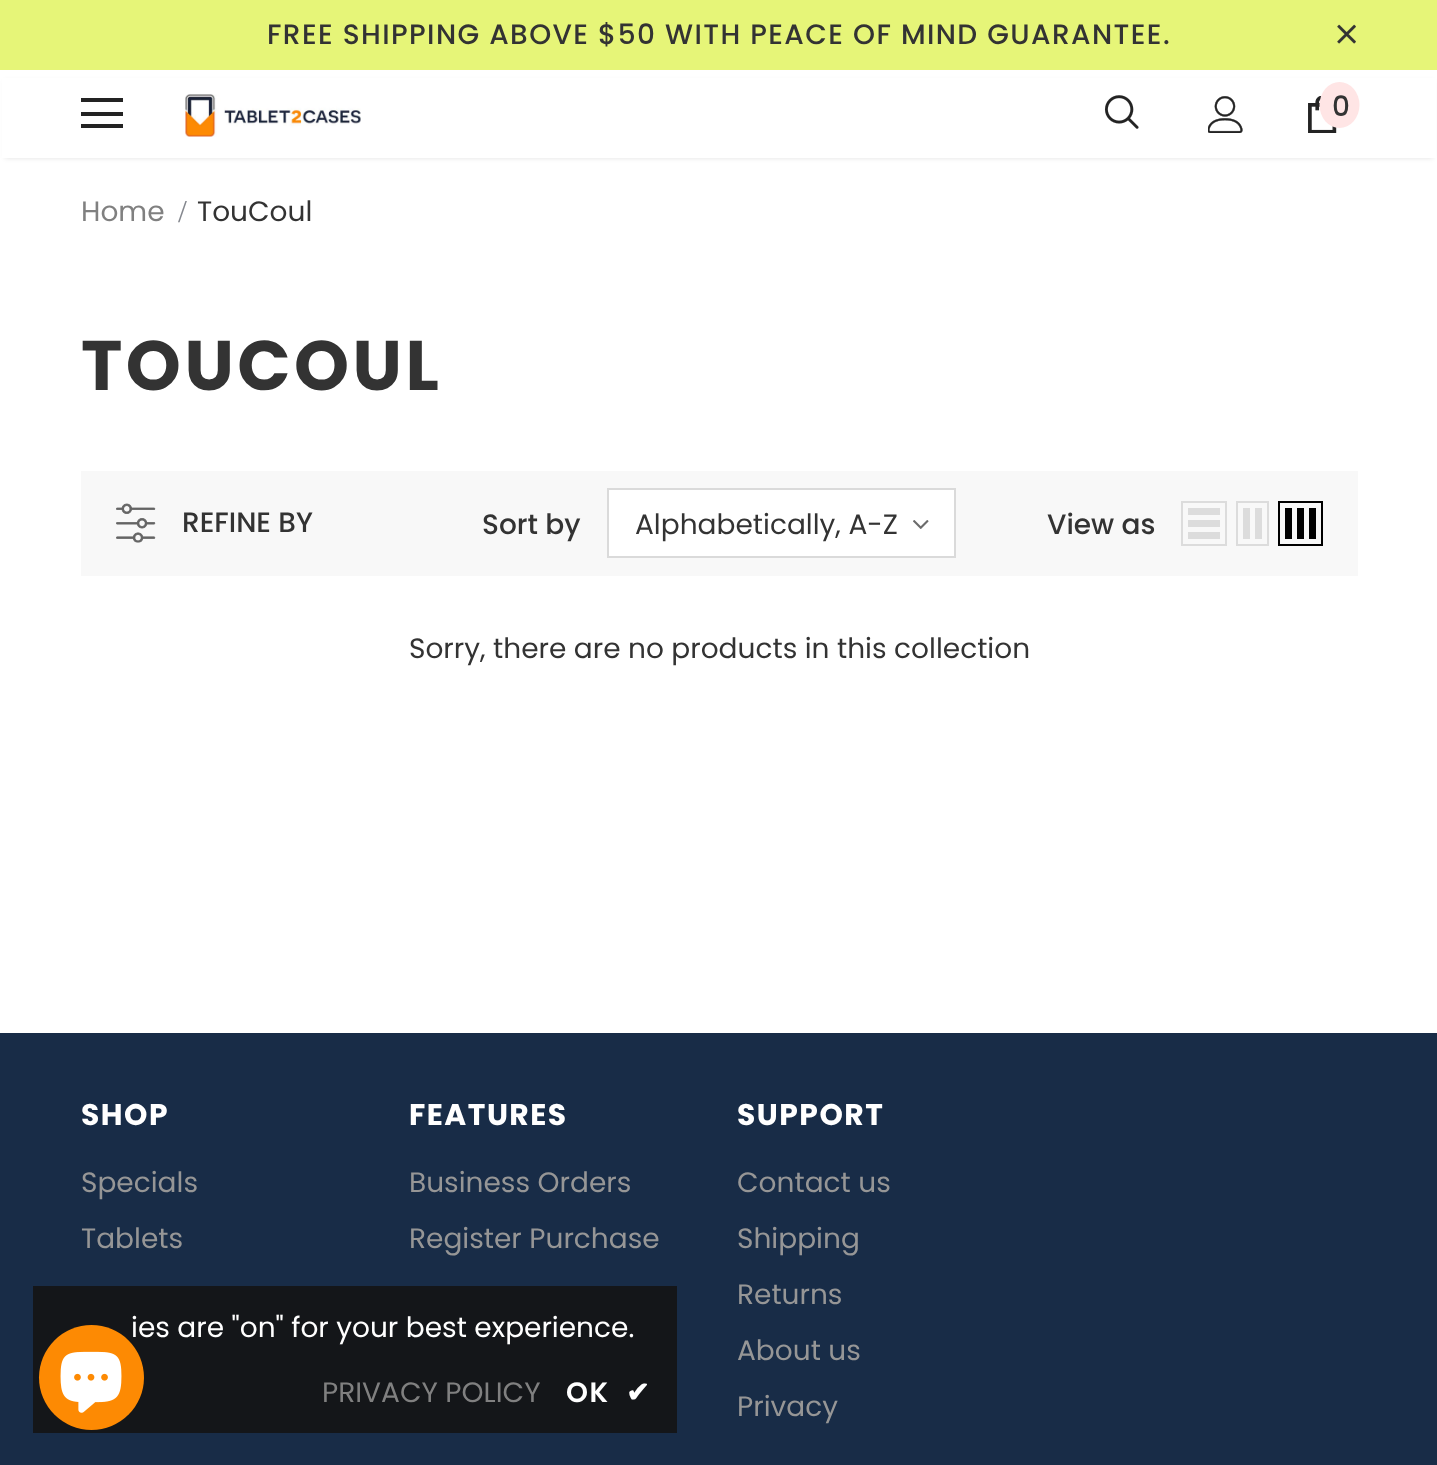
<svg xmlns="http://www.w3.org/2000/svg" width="1437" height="1465">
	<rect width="100%" height="100%" fill="#FFFFFF" />
	<rect x="0" y="0" width="1437" height="70" fill="#E6F578" />
	<text x="267" y="44" font-family="Poppins" font-size="28" font-weight="500" letter-spacing="1.4" fill="#333333">FREE SHIPPING ABOVE $50 WITH PEACE OF MIND GUARANTEE.</text>
	<image x="1337" y="24" width="19" height="20" href="assets/img1.png" />
	<rect x="5" y="81" width="1428" height="77" fill="#000000" fill-opacity="0.12" filter="blur(2.5px)" />
	<rect x="2" y="78" width="1434" height="80" fill="#FFFFFF" />
	<rect x="81" y="98" width="42" height="4" fill="#232323" />
	<rect x="81" y="112" width="42" height="4" fill="#232323" />
	<rect x="81" y="124" width="42" height="4" fill="#232323" />
	<image x="185" y="94" width="176" height="43" href="assets/img2.png" />
	<image x="1104" y="95" width="35" height="34" href="assets/img3.png" />
	<image x="1208" y="96" width="35" height="37" href="assets/img4.png" />
	<image x="1308" y="96" width="29" height="37" href="assets/img5.png" />
	<ellipse cx="1339.5" cy="105" rx="20" ry="23" fill="#FFE5E5" />
	<text x="1332" y="116" font-family="Poppins" font-size="28" font-weight="500" fill="#333333">0</text>
	<text x="81" y="221" font-family="Poppins" font-size="28" fill="#808080">Home</text>
	<text x="178" y="222" font-family="Liberation Serif" font-size="32" fill="#84878E">/</text>
	<text x="197" y="221" font-family="Poppins" font-size="28" fill="#333333">TouCoul</text>
	<text x="81" y="390" font-family="Poppins" font-size="70" font-weight="700" letter-spacing="3.5" fill="#333333">TOUCOUL</text>
	<rect x="81" y="471" width="1277" height="105" fill="#F8F8F8" />
	<image x="116" y="503" width="40" height="40" href="assets/img6.png" />
	<g font-family="Poppins" font-size="28" font-weight="500" fill="#333333">
		<text x="182" y="532">REFINE BY</text>
		<text x="482" y="534">Sort by</text>
	</g>
	<rect x="608" y="489" width="347" height="68" fill="#FFFFFF" stroke="#DADADA" stroke-width="2" />
	<text x="635" y="534" font-family="Poppins" font-size="28" fill="#333333">Alphabetically, A-Z</text>
	<image x="913" y="520" width="16" height="9" href="assets/img7.png" />
	<text x="1047" y="534" font-family="Poppins" font-size="28" font-weight="500" fill="#333333">View as</text>
	<rect x="1182" y="502" width="44" height="43" fill="none" stroke="#DCDCDC" stroke-width="2" />
	<rect x="1188" y="532" width="32" height="7" fill="#DCDCDC" />
	<rect x="1188" y="520" width="32" height="7" fill="#DCDCDC" />
	<rect x="1188" y="508" width="32" height="7" fill="#DCDCDC" />
	<rect x="1237" y="502" width="31" height="43" fill="none" stroke="#DCDCDC" stroke-width="2" />
	<rect x="1255" y="508" width="7" height="31" fill="#DCDCDC" />
	<rect x="1243" y="508" width="7" height="31" fill="#DCDCDC" />
	<rect x="1279" y="502" width="43" height="43" fill="none" stroke="#000000" stroke-width="2" />
	<rect x="1309" y="508" width="7" height="31" fill="#000000" />
	<rect x="1297" y="508" width="7" height="31" fill="#000000" />
	<rect x="1285" y="508" width="7" height="31" fill="#000000" />
	<text x="409" y="658" font-family="Poppins" font-size="28" fill="#333333">Sorry, there are no products in this collection</text>
	<rect x="0" y="1033" width="1437" height="432" fill="#182C47" />
	<text x="81" y="1125" font-family="Poppins" font-size="29.75" font-weight="700" letter-spacing="1.5" fill="#FFFFFF">SHOP</text>
	<g font-family="Poppins" font-size="28" fill="#969696">
		<text x="81" y="1192">Specials</text>
		<text x="81" y="1248">Tablets</text>
	</g>
	<text x="409" y="1125" font-family="Poppins" font-size="29.75" font-weight="700" letter-spacing="1.5" fill="#FFFFFF">FEATURES</text>
	<g font-family="Poppins" font-size="28" fill="#969696">
		<text x="409" y="1192">Business Orders</text>
		<text x="409" y="1248">Register Purchase</text>
	</g>
	<text x="737" y="1125" font-family="Poppins" font-size="29.75" font-weight="700" letter-spacing="1.5" fill="#FFFFFF">SUPPORT</text>
	<g font-family="Poppins" font-size="28" fill="#969696">
		<text x="737" y="1192">Contact us</text>
		<text x="737" y="1248">Shipping</text>
		<text x="737" y="1304">Returns</text>
		<text x="737" y="1360">About us</text>
		<text x="737" y="1416">Privacy</text>
	</g>
	<rect x="33" y="1286" width="644" height="147" fill="#141414" fill-opacity="0.9" />
	<text x="131" y="1337" font-family="Poppins" font-size="28" fill="#FFFFFF">ies are "on" for your best experience.</text>
	<text x="322" y="1402" font-family="Poppins" font-size="28" fill="#808080">PRIVACY POLICY</text>
	<text x="566" y="1402" font-family="Poppins" font-size="28" font-weight="600" letter-spacing="1.4" fill="#FFFFFF">OK</text>
	<text x="626" y="1402" font-family="DejaVu Sans" font-size="28" font-weight="700" letter-spacing="1.4" fill="#FFFFFF">✔</text>
	<circle cx="91.5" cy="1377.5" r="52.5" fill="#FD8A03" />
	<image x="60" y="1351" width="62" height="62" href="assets/img8.png" />
</svg>
